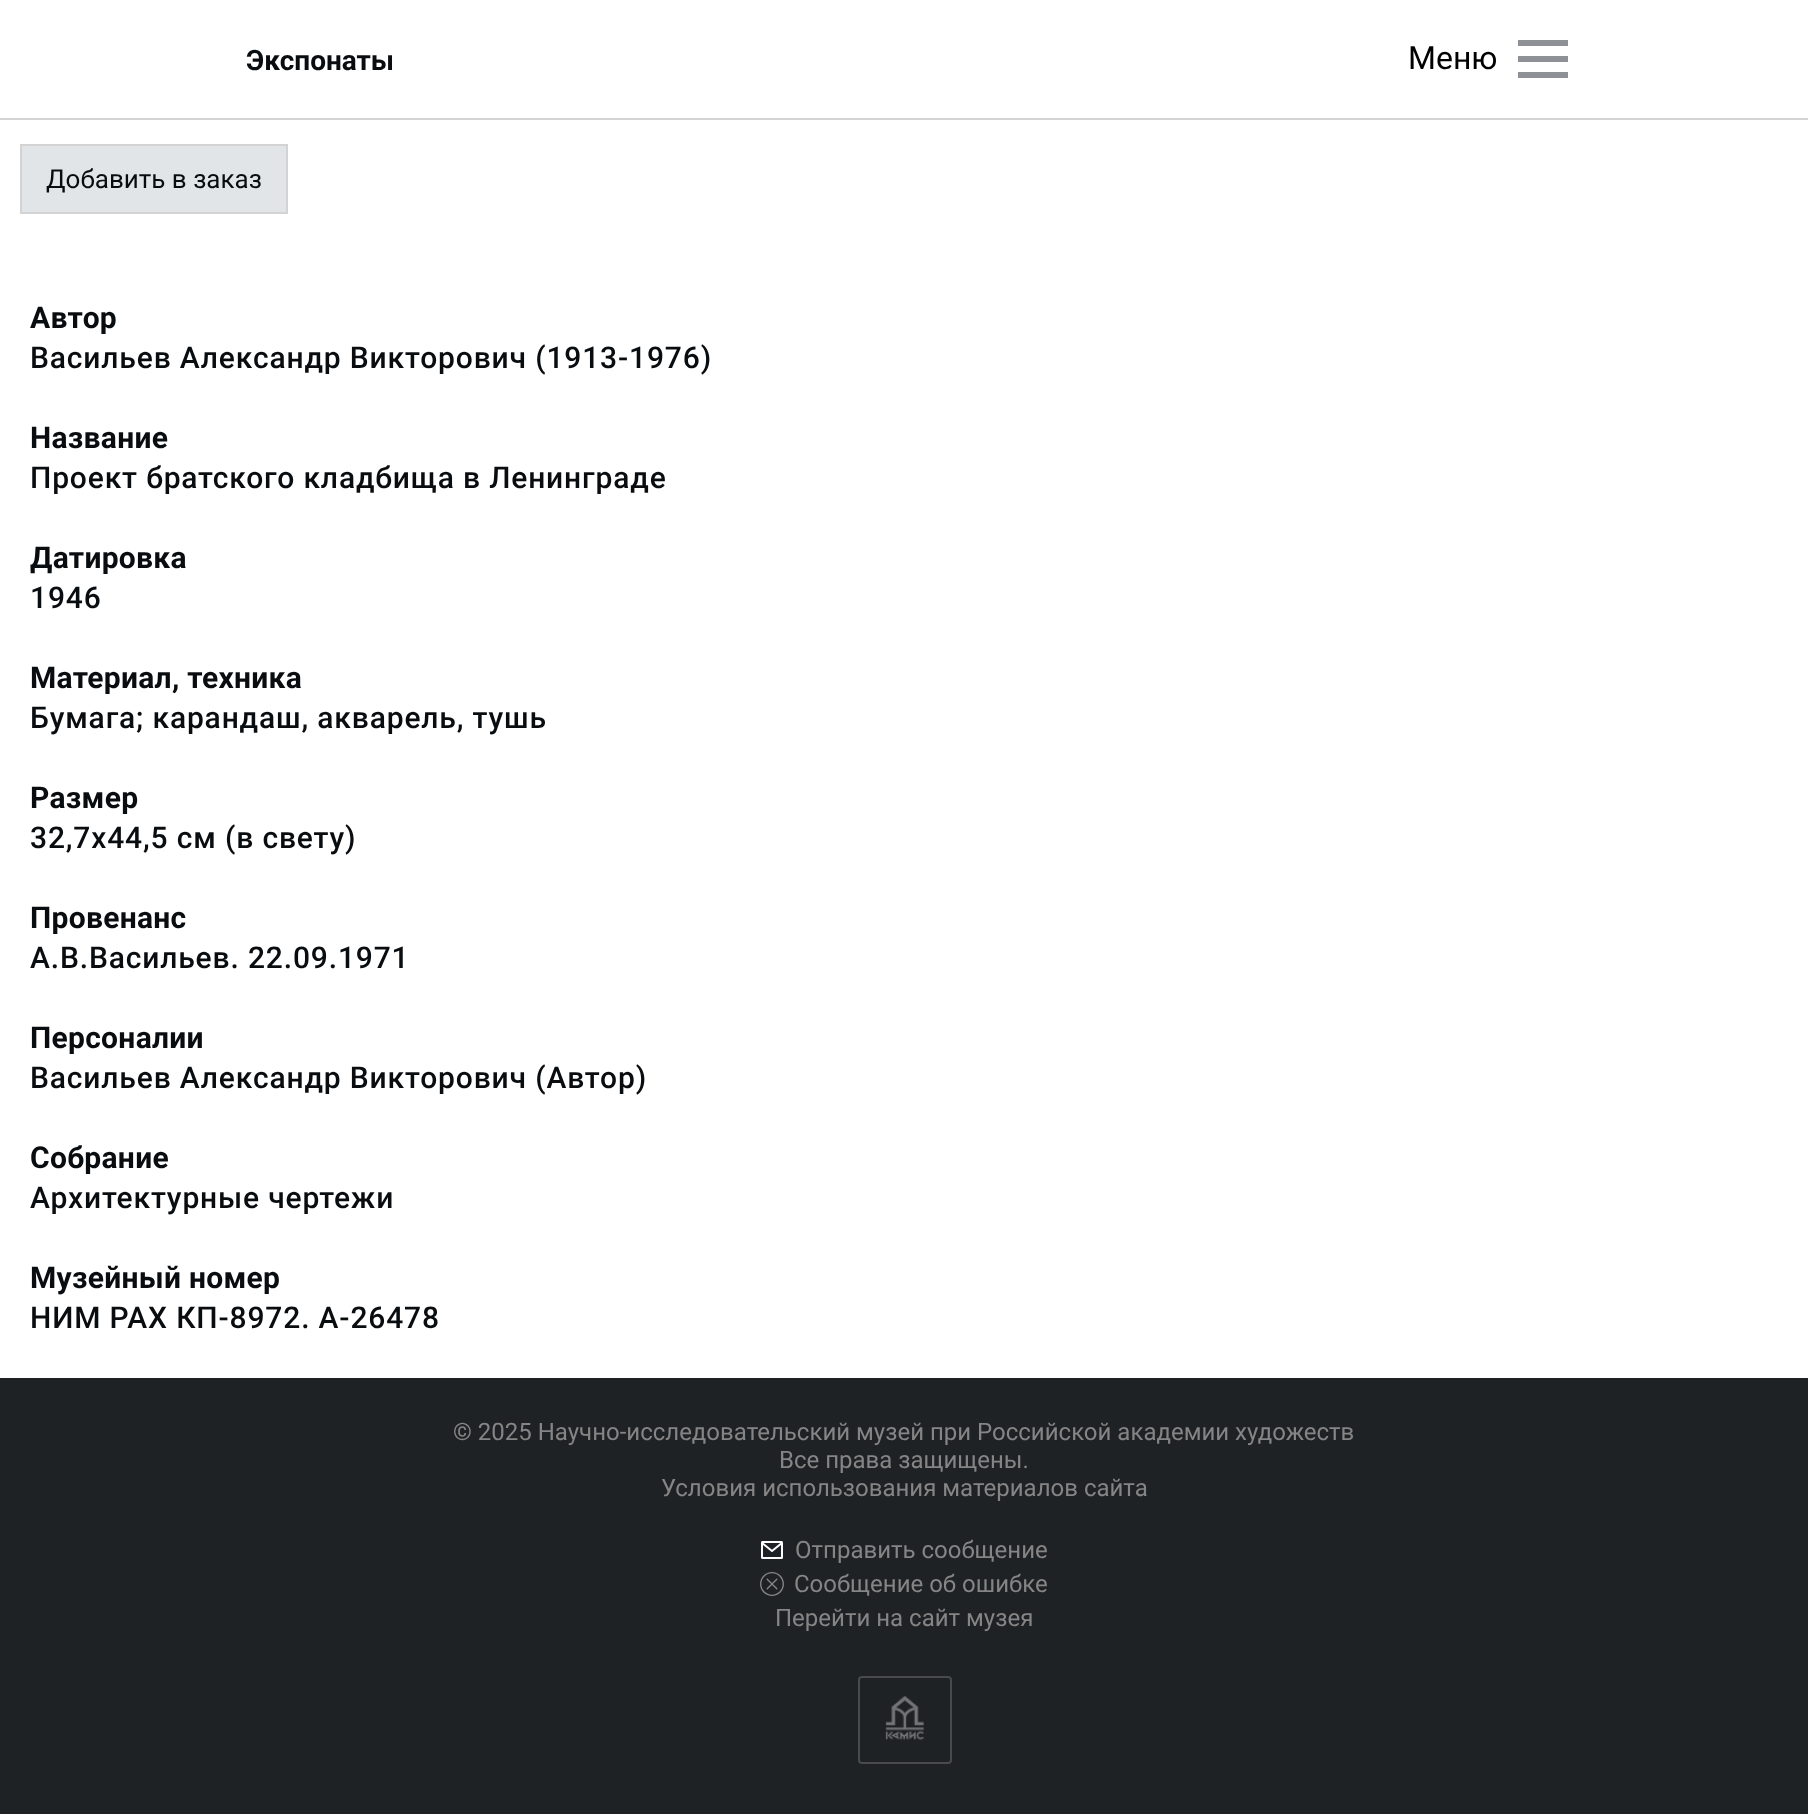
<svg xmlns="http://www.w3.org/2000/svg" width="1808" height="1814">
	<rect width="100%" height="100%" fill="#FFFFFF" />
	<rect x="0" y="118" width="1808" height="2" fill="#D3D3D3" />
	<text x="246" y="70" font-family="Roboto" font-size="28" font-weight="700" fill="#0A0D10">Экспонаты</text>
	<rect x="1518" y="40" width="50" height="6" fill="#8E9195" />
	<text x="1408" y="69" font-family="Roboto" font-size="32" fill="#000000">Меню</text>
	<rect x="1518" y="56" width="50" height="6" fill="#8E9195" />
	<rect x="1518" y="72" width="50" height="6" fill="#8E9195" />
	<rect x="21" y="145" width="266" height="68" fill="#E2E5E8" stroke="#D3D3D3" stroke-width="2" />
	<text x="46" y="188" font-family="Roboto" font-size="26" fill="#0A0D10">Добавить в заказ</text>
	<text x="30" y="328" font-family="Roboto" font-size="30" font-weight="700" letter-spacing="0.3" fill="#0A0D10">Автор</text>
	<text x="30" y="368" font-family="Roboto" font-size="30" font-weight="500" letter-spacing="0.85" fill="#0A0D10">Васильев Александр Викторович (1913-1976)</text>
	<text x="30" y="448" font-family="Roboto" font-size="30" font-weight="700" letter-spacing="0.3" fill="#0A0D10">Название</text>
	<text x="30" y="488" font-family="Roboto" font-size="30" font-weight="500" letter-spacing="0.85" fill="#0A0D10">Проект братского кладбища в Ленинграде</text>
	<text x="30" y="568" font-family="Roboto" font-size="30" font-weight="700" letter-spacing="0.3" fill="#0A0D10">Датировка</text>
	<text x="30" y="608" font-family="Roboto" font-size="30" font-weight="500" letter-spacing="0.85" fill="#0A0D10">1946</text>
	<text x="30" y="688" font-family="Roboto" font-size="30" font-weight="700" letter-spacing="0.3" fill="#0A0D10">Материал, техника</text>
	<text x="30" y="728" font-family="Roboto" font-size="30" font-weight="500" letter-spacing="0.85" fill="#0A0D10">Бумага; карандаш, акварель, тушь</text>
	<text x="30" y="808" font-family="Roboto" font-size="30" font-weight="700" letter-spacing="0.3" fill="#0A0D10">Размер</text>
	<text x="30" y="848" font-family="Roboto" font-size="30" font-weight="500" letter-spacing="0.85" fill="#0A0D10">32,7х44,5 см (в свету)</text>
	<text x="30" y="928" font-family="Roboto" font-size="30" font-weight="700" letter-spacing="0.3" fill="#0A0D10">Провенанс</text>
	<text x="30" y="968" font-family="Roboto" font-size="30" font-weight="500" letter-spacing="0.85" fill="#0A0D10">А.В.Васильев. 22.09.1971</text>
	<text x="30" y="1048" font-family="Roboto" font-size="30" font-weight="700" letter-spacing="0.3" fill="#0A0D10">Персоналии</text>
	<text x="30" y="1088" font-family="Roboto" font-size="30" font-weight="500" letter-spacing="0.85" fill="#0A0D10">Васильев Александр Викторович (Автор)</text>
	<text x="30" y="1168" font-family="Roboto" font-size="30" font-weight="700" letter-spacing="0.3" fill="#0A0D10">Собрание</text>
	<text x="30" y="1208" font-family="Roboto" font-size="30" font-weight="500" letter-spacing="0.85" fill="#0A0D10">Архитектурные чертежи</text>
	<text x="30" y="1288" font-family="Roboto" font-size="30" font-weight="700" letter-spacing="0.3" fill="#0A0D10">Музейный номер</text>
	<text x="30" y="1328" font-family="Roboto" font-size="30" font-weight="500" letter-spacing="0.85" fill="#0A0D10">НИМ РАХ КП-8972. А-26478</text>
	<rect x="0" y="1378" width="1808" height="436" fill="#1F2224" />
	<g font-family="Roboto" font-size="24" fill="#858585">
		<text x="453" y="1440">© 2025 Научно-исследовательский музей при Российской академии художеств</text>
		<text x="779" y="1468">Все права защищены.</text>
		<text x="661" y="1496">Условия использования материалов сайта</text>
	</g>
	<image x="761" y="1541" width="22" height="18" href="assets/img1.png" />
	<text x="795" y="1558" font-family="Roboto" font-size="24" fill="#858585">Отправить сообщение</text>
	<image x="760" y="1572" width="24" height="24" href="assets/img2.png" />
	<g font-family="Roboto" font-size="24" fill="#858585">
		<text x="794" y="1592">Сообщение об ошибке</text>
		<text x="775" y="1626">Перейти на сайт музея</text>
	</g>
	<rect x="859" y="1677" width="92" height="86" rx="3" fill="none" stroke="#484A4B" stroke-width="2" />
	<image x="885" y="1696" width="39" height="44" href="assets/img3.png" />
</svg>
